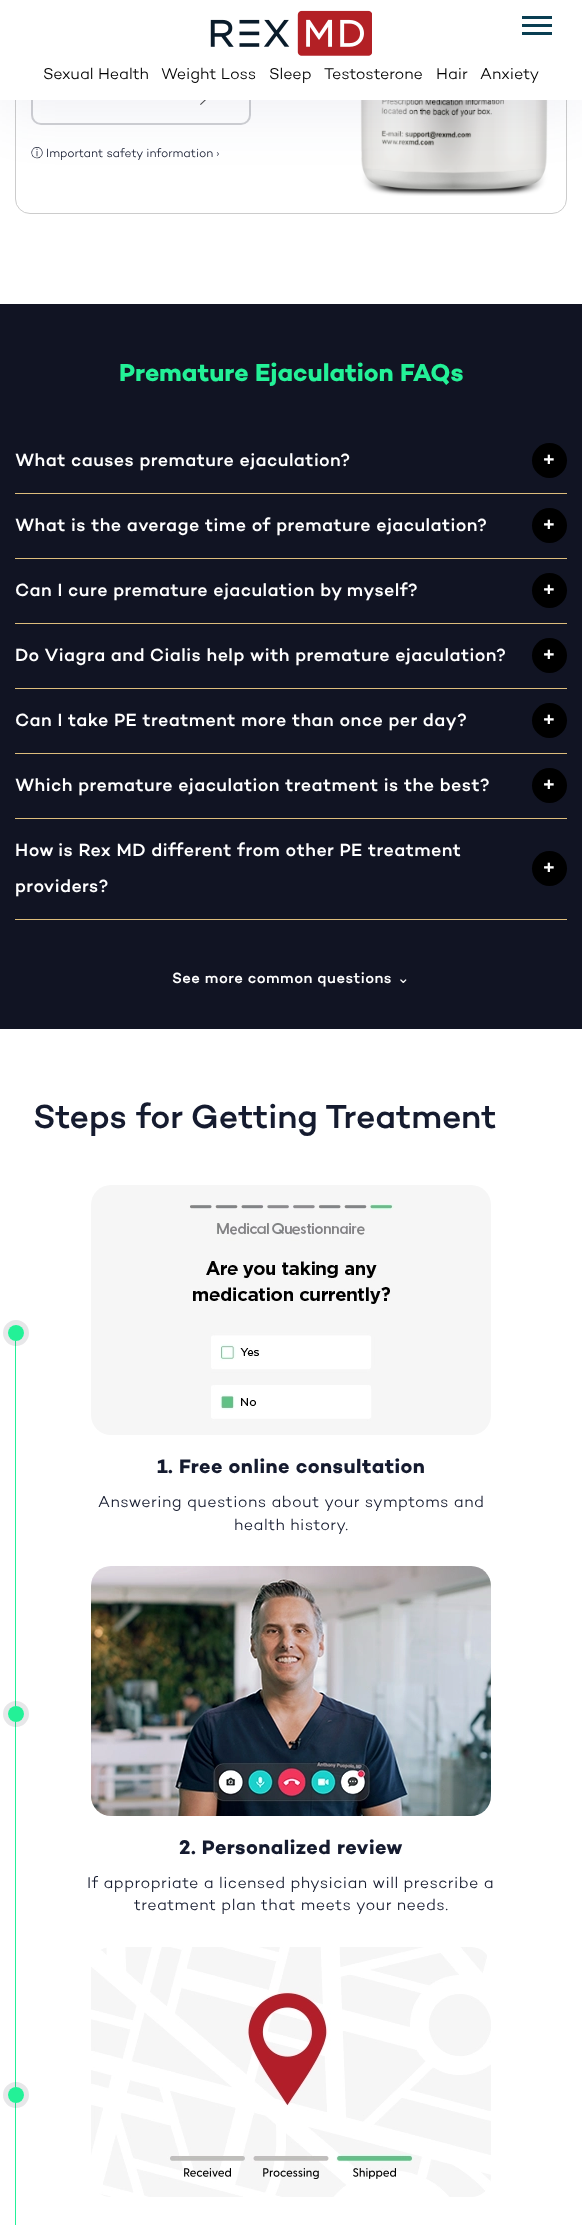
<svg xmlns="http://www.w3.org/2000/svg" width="582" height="2225">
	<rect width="100%" height="100%" fill="#FFFFFF" />
	<rect x="15.5" y="-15.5" width="551" height="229" rx="14.5" fill="none" stroke="#CCCCCC" />
	<rect x="32" y="76" width="218" height="48" rx="9" fill="none" stroke="#CFD0D3" stroke-width="2" />
	<image x="200" y="100" width="6" height="5" href="assets/img2.png" />
	<image x="360" y="100" width="188" height="96" href="assets/img3.png" />
	<rect x="0" y="10" width="582" height="100" fill="#262D76" fill-opacity="0.08" filter="blur(30px)" />
	<rect x="0" y="0" width="582" height="100" fill="#FFFFFF" />
	<rect x="522" y="16" width="30" height="3" fill="#093E52" />
	<rect x="522" y="24" width="30" height="3" fill="#093E52" />
	<rect x="522" y="32" width="30" height="3" fill="#093E52" />
	<image x="210" y="10" width="162" height="46" href="assets/img1.png" />
	<g font-family="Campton" font-size="16" font-weight="300" fill="#000000">
		<text x="43" y="79">Sexual Health</text>
		<text x="161" y="79">Weight Loss</text>
		<text x="269" y="79">Sleep</text>
		<text x="324" y="79">Testosterone</text>
		<text x="436" y="79">Hair</text>
		<text x="480" y="79">Anxiety</text>
	</g>
	<text x="31" y="157" font-family="WenQuanYi Zen Hei" font-size="12" font-weight="500" fill="#151B2F">ⓘ</text>
	<text x="46" y="157" font-family="Campton" font-size="12" font-weight="300" fill="#151B2F">Important safety information ›</text>
	<rect x="0" y="304" width="582" height="725" fill="#111423" />
	<text x="119" y="381" font-family="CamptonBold" font-size="25" font-weight="700" fill="#23F197">Premature Ejaculation FAQs</text>
	<rect x="15" y="493" width="552" height="1" fill="#DDBD7C" />
	<text x="15" y="466" font-family="Campton" font-size="18" font-weight="500" letter-spacing="0.5" fill="#FFFFFF">What causes premature ejaculation?</text>
	<circle cx="549.5" cy="460.5" r="17.5" fill="#000000" />
	<text x="542" y="466" font-family="Campton" font-size="20" font-weight="500" letter-spacing="0.5" fill="#FFFFFF">+</text>
	<rect x="15" y="558" width="552" height="1" fill="#DDBD7C" />
	<text x="15" y="531" font-family="Campton" font-size="18" font-weight="500" letter-spacing="0.5" fill="#FFFFFF">What is the average time of premature ejaculation?</text>
	<circle cx="549.5" cy="525.5" r="17.5" fill="#000000" />
	<text x="542" y="531" font-family="Campton" font-size="20" font-weight="500" letter-spacing="0.5" fill="#FFFFFF">+</text>
	<rect x="15" y="623" width="552" height="1" fill="#DDBD7C" />
	<text x="15" y="596" font-family="Campton" font-size="18" font-weight="500" letter-spacing="0.5" fill="#FFFFFF">Can I cure premature ejaculation by myself?</text>
	<circle cx="549.5" cy="590.5" r="17.5" fill="#000000" />
	<text x="542" y="596" font-family="Campton" font-size="20" font-weight="500" letter-spacing="0.5" fill="#FFFFFF">+</text>
	<rect x="15" y="688" width="552" height="1" fill="#DDBD7C" />
	<text x="15" y="661" font-family="Campton" font-size="18" font-weight="500" letter-spacing="0.5" fill="#FFFFFF">Do Viagra and Cialis help with premature ejaculation?</text>
	<circle cx="549.5" cy="655.5" r="17.5" fill="#000000" />
	<text x="542" y="661" font-family="Campton" font-size="20" font-weight="500" letter-spacing="0.5" fill="#FFFFFF">+</text>
	<rect x="15" y="753" width="552" height="1" fill="#DDBD7C" />
	<text x="15" y="726" font-family="Campton" font-size="18" font-weight="500" letter-spacing="0.5" fill="#FFFFFF">Can I take PE treatment more than once per day?</text>
	<circle cx="549.5" cy="720.5" r="17.5" fill="#000000" />
	<text x="542" y="726" font-family="Campton" font-size="20" font-weight="500" letter-spacing="0.5" fill="#FFFFFF">+</text>
	<rect x="15" y="818" width="552" height="1" fill="#DDBD7C" />
	<text x="15" y="791" font-family="Campton" font-size="18" font-weight="500" letter-spacing="0.5" fill="#FFFFFF">Which premature ejaculation treatment is the best?</text>
	<circle cx="549.5" cy="785.5" r="17.5" fill="#000000" />
	<text x="542" y="791" font-family="Campton" font-size="20" font-weight="500" letter-spacing="0.5" fill="#FFFFFF">+</text>
	<rect x="15" y="919" width="552" height="1" fill="#DDBD7C" />
	<g font-family="Campton" font-size="18" font-weight="500" letter-spacing="0.5" fill="#FFFFFF">
		<text x="15" y="856">How is Rex MD different from other PE treatment</text>
		<text x="15" y="892">providers?</text>
	</g>
	<circle cx="549.5" cy="868.5" r="17.5" fill="#000000" />
	<text x="542" y="874" font-family="Campton" font-size="20" font-weight="500" letter-spacing="0.5" fill="#FFFFFF">+</text>
	<text x="172" y="983" font-family="Campton" font-size="15" font-weight="500" letter-spacing="0.5" fill="#FFFFFF">See more common questions</text>
	<text x="397" y="983" font-family="DejaVu Sans" font-size="15" letter-spacing="0.5" fill="#FFFFFF">⌄</text>
	<text x="33" y="1128" font-family="Campton" font-size="34" font-weight="500" fill="#151B2F">Steps for Getting Treatment</text>
	<rect x="15" y="1335" width="1" height="890" fill="#23F197" />
	<circle cx="16" cy="1333" r="10.5" fill="none" stroke="#111423" stroke-opacity="0.1" stroke-width="5" />
	<circle cx="16" cy="1333" r="8" fill="#23F197" />
	<image x="91" y="1185" width="400" height="250" href="assets/img4.png" />
	<text x="157" y="1473" font-family="CamptonBold" font-size="20" font-weight="700" letter-spacing="0.5" fill="#151B2F">1. Free online consultation</text>
	<g font-family="Campton" font-size="16" font-weight="300" letter-spacing="0.5" fill="#151B2F">
		<text x="98" y="1507">Answering questions about your symptoms and</text>
		<text x="234" y="1530">health history.</text>
	</g>
	<circle cx="16" cy="1714" r="10.5" fill="none" stroke="#111423" stroke-opacity="0.1" stroke-width="5" />
	<circle cx="16" cy="1714" r="8" fill="#23F197" />
	<image x="91" y="1566" width="400" height="250" href="assets/img5.png" />
	<text x="179" y="1854" font-family="CamptonBold" font-size="20" font-weight="700" letter-spacing="0.5" fill="#151B2F">2. Personalized review</text>
	<g font-family="Campton" font-size="16" font-weight="300" letter-spacing="0.5" fill="#151B2F">
		<text x="87" y="1888">If appropriate a licensed physician will prescribe a</text>
		<text x="134" y="1910">treatment plan that meets your needs.</text>
	</g>
	<circle cx="16" cy="2095" r="10.5" fill="none" stroke="#111423" stroke-opacity="0.1" stroke-width="5" />
	<circle cx="16" cy="2095" r="8" fill="#23F197" />
	<image x="91" y="1947" width="400" height="250" href="assets/img6.png" />
</svg>
